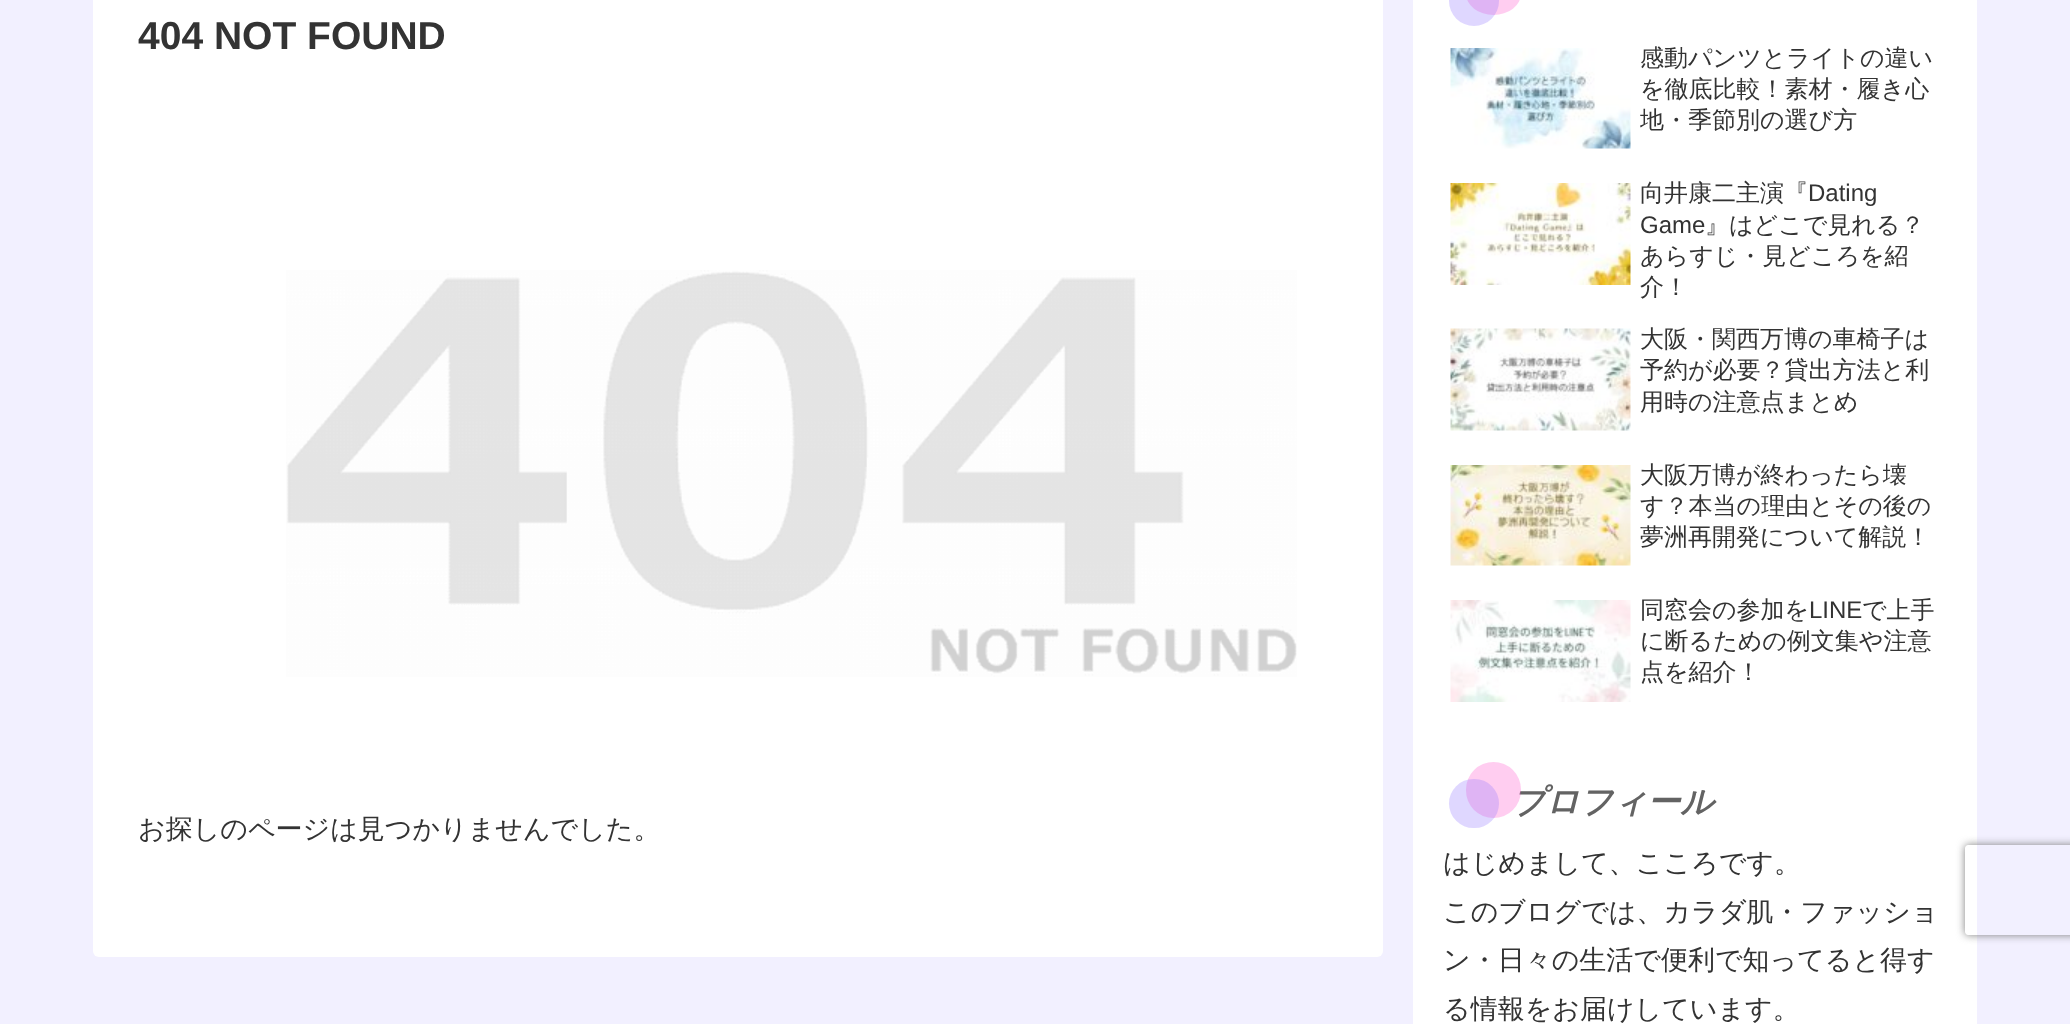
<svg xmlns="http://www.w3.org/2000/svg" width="2070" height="1024">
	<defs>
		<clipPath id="clip1"><rect x="1640" y="44" width="300" height="93" /></clipPath>
		<clipPath id="clip2"><path d="M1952 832H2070V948H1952ZM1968 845H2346C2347.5 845 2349 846.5 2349 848V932C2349 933.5 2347.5 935 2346 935H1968C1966.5 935 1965 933.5 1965 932V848C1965 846.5 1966.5 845 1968 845Z" clip-rule="evenodd" /></clipPath>
	</defs>
	<rect width="100%" height="100%" fill="#F2F0FF" />
	<rect x="93" y="-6" width="1290" height="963" rx="6" fill="#FFFFFF" />
	<text x="138" y="49" font-family="Liberation Sans" font-size="39" font-weight="700" fill="#333333">404 NOT FOUND</text>
	<image x="286" y="270" width="1011" height="407" href="assets/img1.png" />
	<text x="138" y="838" font-family="WenQuanYi Zen Hei" font-size="27" font-weight="500" fill="#333333">お探しのページは見つかりませんでした。</text>
	<rect x="1413" y="0" width="564" height="1024" fill="#FFFFFF" />
	<rect x="1466" y="-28" width="55" height="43" rx="27.5" fill="#FF58CC" fill-opacity="0.3" />
	<circle cx="1474" cy="1" r="25" fill="#967CFF" fill-opacity="0.3" />
	<image x="1450" y="48" width="181" height="101" href="assets/img2.png" />
	<g font-family="WenQuanYi Zen Hei" font-size="24" font-weight="500" fill="#333333">
		<text x="1640" y="66">感動パンツとライトの違い</text>
		<text x="1640" y="97">を徹底比較！素材・履き心</text>
	</g>
	<g clip-path="url(#clip1)">
		<text x="1640" y="128" font-family="WenQuanYi Zen Hei" font-size="24" font-weight="500" fill="#333333">地・季節別の選び方</text>
	</g>
	<image x="1450" y="183" width="181" height="102" href="assets/img3.png" />
	<text x="1640" y="201" font-family="WenQuanYi Zen Hei" font-size="24" font-weight="500" fill="#333333">向井康二主演『</text>
	<g font-family="Liberation Sans" font-size="24" fill="#333333">
		<text x="1808" y="201">Dating</text>
		<text x="1640" y="233">Game</text>
	</g>
	<g font-family="WenQuanYi Zen Hei" font-size="24" font-weight="500" fill="#333333">
		<text x="1705" y="233">』はどこで見れる？</text>
		<text x="1640" y="264">あらすじ・見どころを紹</text>
		<text x="1640" y="295">介！</text>
	</g>
	<image x="1450" y="328" width="181" height="103" href="assets/img4.png" />
	<g font-family="WenQuanYi Zen Hei" font-size="24" font-weight="500" fill="#333333">
		<text x="1640" y="347">大阪・関西万博の車椅子は</text>
		<text x="1640" y="378">予約が必要？貸出方法と利</text>
		<text x="1640" y="410">用時の注意点まとめ</text>
	</g>
	<image x="1450" y="465" width="181" height="101" href="assets/img5.png" />
	<g font-family="WenQuanYi Zen Hei" font-size="24" font-weight="500" fill="#333333">
		<text x="1640" y="483">大阪万博が終わったら壊</text>
		<text x="1640" y="514">す？本当の理由とその後の</text>
		<text x="1640" y="545">夢洲再開発について解説！</text>
	</g>
	<image x="1450" y="600" width="181" height="102" href="assets/img6.png" />
	<text x="1640" y="618" font-family="WenQuanYi Zen Hei" font-size="24" font-weight="500" fill="#333333">同窓会の参加を</text>
	<text x="1809" y="618" font-family="Liberation Sans" font-size="24" fill="#333333">LINE</text>
	<g font-family="WenQuanYi Zen Hei" font-size="24" font-weight="500" fill="#333333">
		<text x="1862" y="618">で上手</text>
		<text x="1640" y="649">に断るための例文集や注意</text>
		<text x="1640" y="680">点を紹介！</text>
	</g>
	<text x="1512" y="813" font-family="WenQuanYi Zen Hei" font-size="33" font-weight="700" font-style="italic" fill="#636363">プロフィール</text>
	<rect x="1466" y="762" width="55" height="56" rx="27.5" fill="#FF58CC" fill-opacity="0.3" />
	<rect x="1449" y="779" width="50" height="49" rx="24.5" fill="#967CFF" fill-opacity="0.3" />
	<g font-family="WenQuanYi Zen Hei" font-size="27" font-weight="500" fill="#333333">
		<text x="1443" y="872">はじめまして、こころです。</text>
		<text x="1443" y="921">このブログでは、カラダ肌・ファッショ</text>
		<text x="1443" y="969">ン・日々の生活で便利で知ってると得す</text>
		<text x="1443" y="1018">る情報をお届けしています。</text>
	</g>
	<g clip-path="url(#clip2)">
		<rect x="1965" y="845" width="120" height="90" rx="3" fill="#808080" filter="blur(4px)" />
	</g>
</svg>
